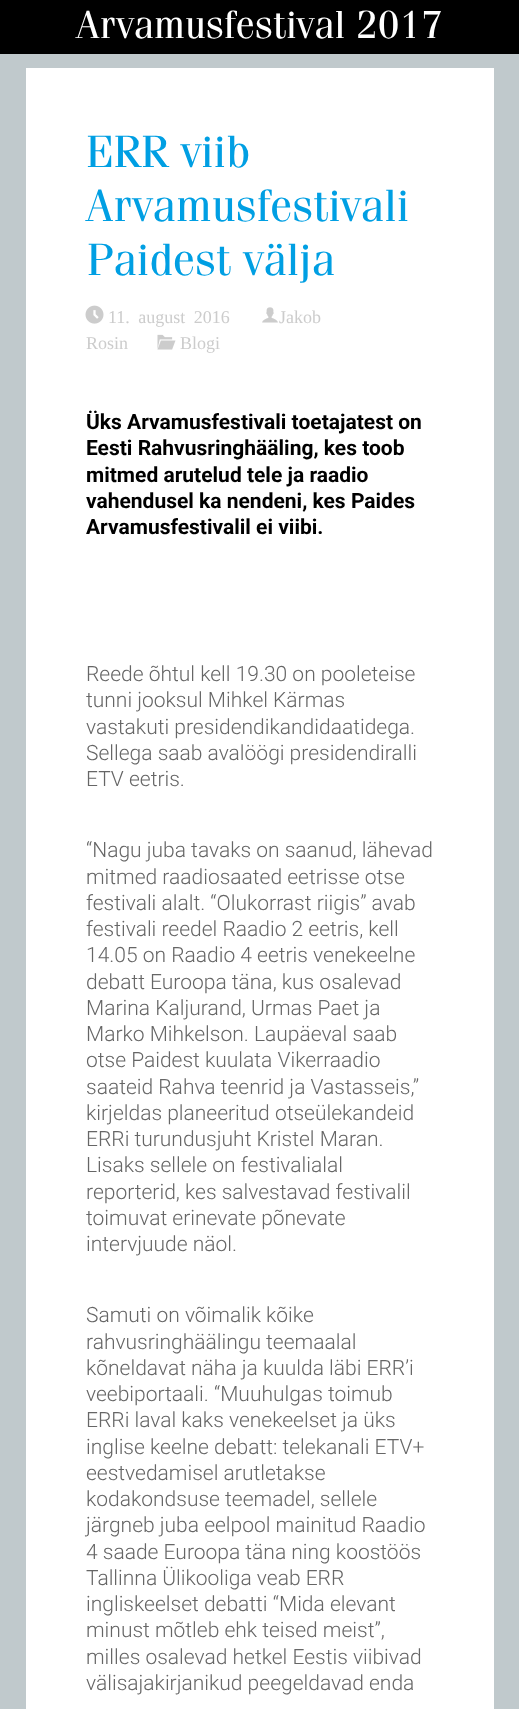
<svg xmlns="http://www.w3.org/2000/svg" width="519" height="1709">
	<rect width="100%" height="100%" fill="#C0C9CC" />
	<rect x="0" y="0" width="519" height="54" fill="#000000" />
	<text x="76" y="38" font-family="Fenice" font-size="39" fill="#FFFFFF">Arvamusfestival 2017</text>
	<rect x="26" y="68" width="468" height="1641" fill="#FFFFFF" />
	<g font-family="Fenice" font-size="45" fill="#009FE3">
		<text x="86" y="167">ERR viib</text>
		<text x="86" y="221">Arvamusfestivali</text>
		<text x="86" y="275">Paidest välja</text>
	</g>
	<image x="85" y="305" width="19" height="19" href="assets/img1.png" />
	<text x="108" y="323" word-spacing="4" font-family="Liberation Serif" font-size="18" fill="#CCCCCC">11. august 2016</text>
	<image x="262" y="307" width="16" height="16" href="assets/img2.png" />
	<g font-family="Liberation Serif" font-size="18" fill="#CCCCCC">
		<text x="279" y="323">Jakob</text>
		<text x="86" y="349">Rosin</text>
	</g>
	<image x="157" y="334" width="19" height="16" href="assets/img3.png" />
	<text x="180" y="349" font-family="Liberation Serif" font-size="18" fill="#CCCCCC">Blogi</text>
	<g font-family="Roboto" font-size="21" font-weight="700" fill="#000000">
		<text x="86" y="429">Üks Arvamusfestivali toetajatest on</text>
		<text x="86" y="455">Eesti Rahvusringhääling, kes toob</text>
		<text x="86" y="482">mitmed arutelud tele ja raadio</text>
		<text x="86" y="508">vahendusel ka nendeni, kes Paides</text>
		<text x="86" y="534">Arvamusfestivalil ei viibi.</text>
	</g>
	<g font-family="Roboto" font-size="21" font-weight="300" fill="#666666">
		<text x="86" y="681">Reede õhtul kell 19.30 on pooleteise</text>
		<text x="86" y="707">tunni jooksul Mihkel Kärmas</text>
		<text x="86" y="734">vastakuti presidendikandidaatidega.</text>
		<text x="86" y="760">Sellega saab avalöögi presidendiralli</text>
		<text x="86" y="786">ETV eetris.</text>
		<text x="86" y="857">“Nagu juba tavaks on saanud, lähevad</text>
		<text x="86" y="884">mitmed raadiosaated eetrisse otse</text>
		<text x="86" y="910">festivali alalt. “Olukorrast riigis” avab</text>
		<text x="86" y="936">festivali reedel Raadio 2 eetris, kell</text>
		<text x="86" y="962">14.05 on Raadio 4 eetris venekeelne</text>
		<text x="86" y="989">debatt Euroopa täna, kus osalevad</text>
		<text x="86" y="1015">Marina Kaljurand, Urmas Paet ja</text>
		<text x="86" y="1041">Marko Mihkelson. Laupäeval saab</text>
		<text x="86" y="1067">otse Paidest kuulata Vikerraadio</text>
		<text x="86" y="1094">saateid Rahva teenrid ja Vastasseis,”</text>
		<text x="86" y="1120">kirjeldas planeeritud otseülekandeid</text>
		<text x="86" y="1146">ERRi turundusjuht Kristel Maran.</text>
		<text x="86" y="1172">Lisaks sellele on festivalialal</text>
		<text x="86" y="1199">reporterid, kes salvestavad festivalil</text>
		<text x="86" y="1225">toimuvat erinevate põnevate</text>
		<text x="86" y="1251">intervjuude näol.</text>
		<text x="86" y="1322">Samuti on võimalik kõike</text>
		<text x="86" y="1349">rahvusringhäälingu teemaalal</text>
		<text x="86" y="1375">kõneldavat näha ja kuulda läbi ERR’i</text>
		<text x="86" y="1401">veebiportaali. “Muuhulgas toimub</text>
		<text x="86" y="1427">ERRi laval kaks venekeelset ja üks</text>
		<text x="86" y="1454">inglise keelne debatt: telekanali ETV+</text>
		<text x="86" y="1480">eestvedamisel arutletakse</text>
		<text x="86" y="1506">kodakondsuse teemadel, sellele</text>
		<text x="86" y="1532">järgneb juba eelpool mainitud Raadio</text>
		<text x="86" y="1559">4 saade Euroopa täna ning koostöös</text>
		<text x="86" y="1585">Tallinna Ülikooliga veab ERR</text>
		<text x="86" y="1611">ingliskeelset debatti “Mida elevant</text>
		<text x="86" y="1637">minust mõtleb ehk teised meist”,</text>
		<text x="86" y="1664">milles osalevad hetkel Eestis viibivad</text>
		<text x="86" y="1690">välisajakirjanikud peegeldavad enda</text>
	</g>
</svg>
